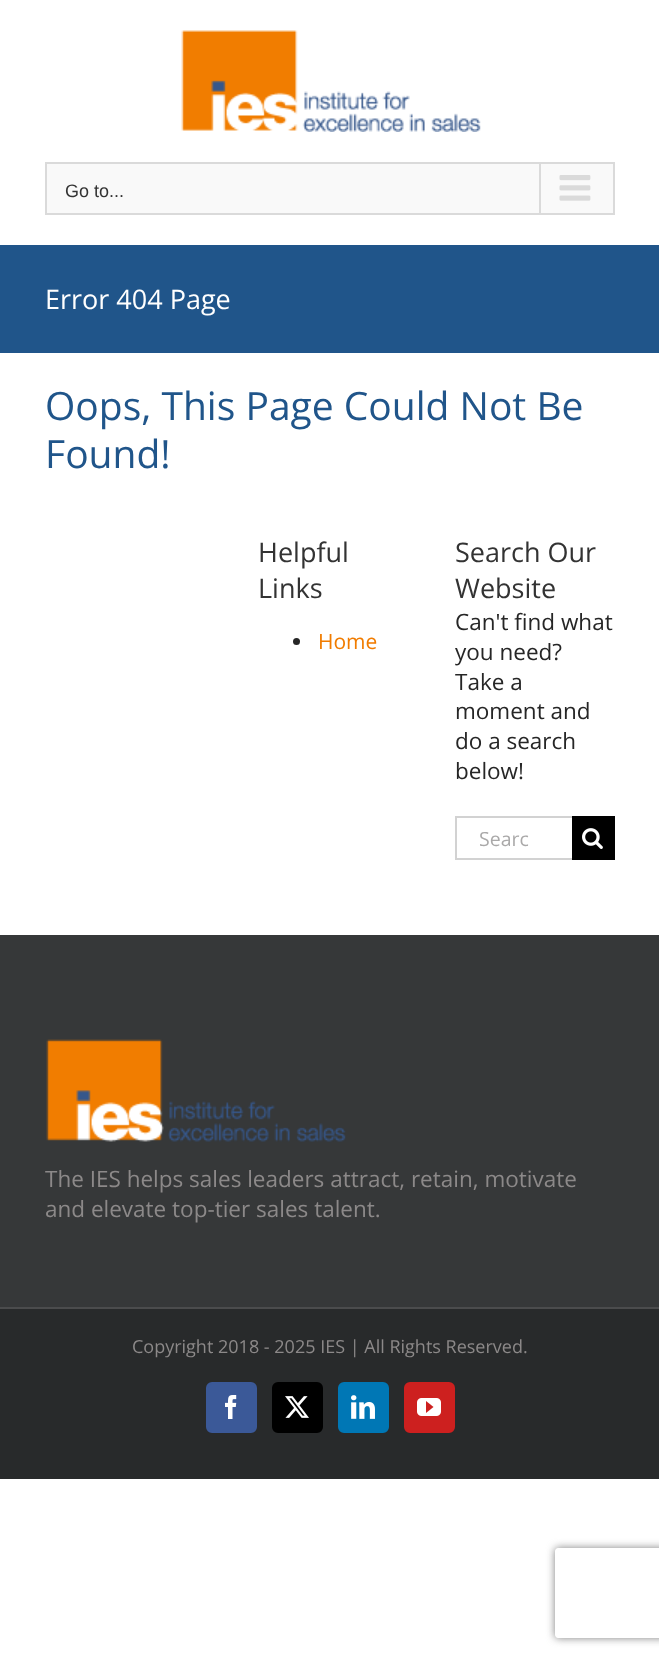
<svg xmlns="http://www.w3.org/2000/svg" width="659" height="1658">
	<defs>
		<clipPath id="clip1"><path d="M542 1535H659V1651H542ZM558 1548H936C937.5 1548 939 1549.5 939 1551V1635C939 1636.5 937.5 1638 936 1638H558C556.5 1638 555 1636.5 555 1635V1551C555 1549.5 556.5 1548 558 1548Z" clip-rule="evenodd" /></clipPath>
	</defs>
	<rect width="100%" height="100%" fill="#FFFFFF" />
	<image x="181" y="30" width="300" height="102" href="assets/img1.png" />
	<rect x="46" y="163" width="568" height="51" fill="#F9F9F9" stroke="#DADADA" stroke-width="2" />
	<text x="65" y="197" font-family="Liberation Sans" font-size="18" fill="#333333">Go to...</text>
	<rect x="539" y="164" width="2" height="49" fill="#DADADA" />
	<image x="559" y="175" width="32" height="26" href="assets/img2.png" />
	<rect x="0" y="245" width="659" height="108" fill="#20558A" />
	<text x="45" y="309" font-family="Open Sans" font-size="27" fill="#FFFFFF">Error 404 Page</text>
	<g font-family="Open Sans" font-size="39" fill="#20558A">
		<text x="45" y="420">Oops, This Page Could Not Be</text>
		<text x="45" y="468">Found!</text>
	</g>
	<g font-family="Open Sans" font-size="27" fill="#333333">
		<text x="258" y="562">Helpful</text>
		<text x="258" y="598">Links</text>
	</g>
	<circle cx="296.5" cy="641.5" r="3.5" fill="#262626" />
	<text x="318" y="649" font-family="Open Sans" font-size="21" fill="#F17C00">Home</text>
	<g font-family="Open Sans" font-size="27" fill="#333333">
		<text x="455" y="562">Search Our</text>
		<text x="455" y="598">Website</text>
	</g>
	<g font-family="Open Sans" font-size="22.5" fill="#262626">
		<text x="455" y="630">Can't find what</text>
		<text x="455" y="660">you need?</text>
		<text x="455" y="690">Take a</text>
		<text x="455" y="719">moment and</text>
		<text x="455" y="749">do a search</text>
		<text x="455" y="779">below!</text>
	</g>
	<rect x="455" y="816" width="117" height="2" fill="#D2D2D2" />
	<rect x="455" y="858" width="117" height="2" fill="#D2D2D2" />
	<rect x="455" y="816" width="2" height="44" fill="#D2D2D2" />
	<text x="479" y="846" font-family="Open Sans" font-size="19.5" fill="#AAA9A9">Searc</text>
	<rect x="572" y="816" width="43" height="44" fill="#000000" />
	<image x="582" y="828" width="21" height="21" href="assets/img3.png" />
	<rect x="0" y="935" width="659" height="372" fill="#363839" />
	<image x="46" y="1039" width="300" height="103" href="assets/img4.png" />
	<g font-family="Open Sans" font-size="22.5" fill="#8C8989">
		<text x="45" y="1187">The IES helps sales leaders attract, retain, motivate</text>
		<text x="45" y="1217">and elevate top-tier sales talent.</text>
	</g>
	<rect x="0" y="1309" width="659" height="170" fill="#282A2B" />
	<rect x="0" y="1307" width="659" height="2" fill="#4B4C4D" />
	<text x="132" y="1353" font-family="Open Sans" font-size="18" fill="#8C8989">Copyright 2018 - 2025 IES | All Rights Reserved.</text>
	<rect x="207" y="1383" width="49" height="49" rx="5" fill="#3B5998" stroke="#3B5998" stroke-width="2" />
	<image x="225" y="1395" width="12" height="24" href="assets/img5.png" />
	<rect x="273" y="1383" width="49" height="49" rx="5" fill="#000000" stroke="#000000" stroke-width="2" />
	<image x="285" y="1396" width="24" height="22" href="assets/img6.png" />
	<rect x="339" y="1383" width="49" height="49" rx="5" fill="#0077B5" stroke="#0077B5" stroke-width="2" />
	<image x="351" y="1395" width="24" height="24" href="assets/img7.png" />
	<rect x="405" y="1383" width="49" height="49" rx="5" fill="#CD201F" stroke="#CD201F" stroke-width="2" />
	<image x="417" y="1398" width="24" height="18" href="assets/img8.png" />
	<g clip-path="url(#clip1)">
		<rect x="555" y="1548" width="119" height="90" rx="3" fill="#808080" filter="blur(4px)" />
	</g>
</svg>
